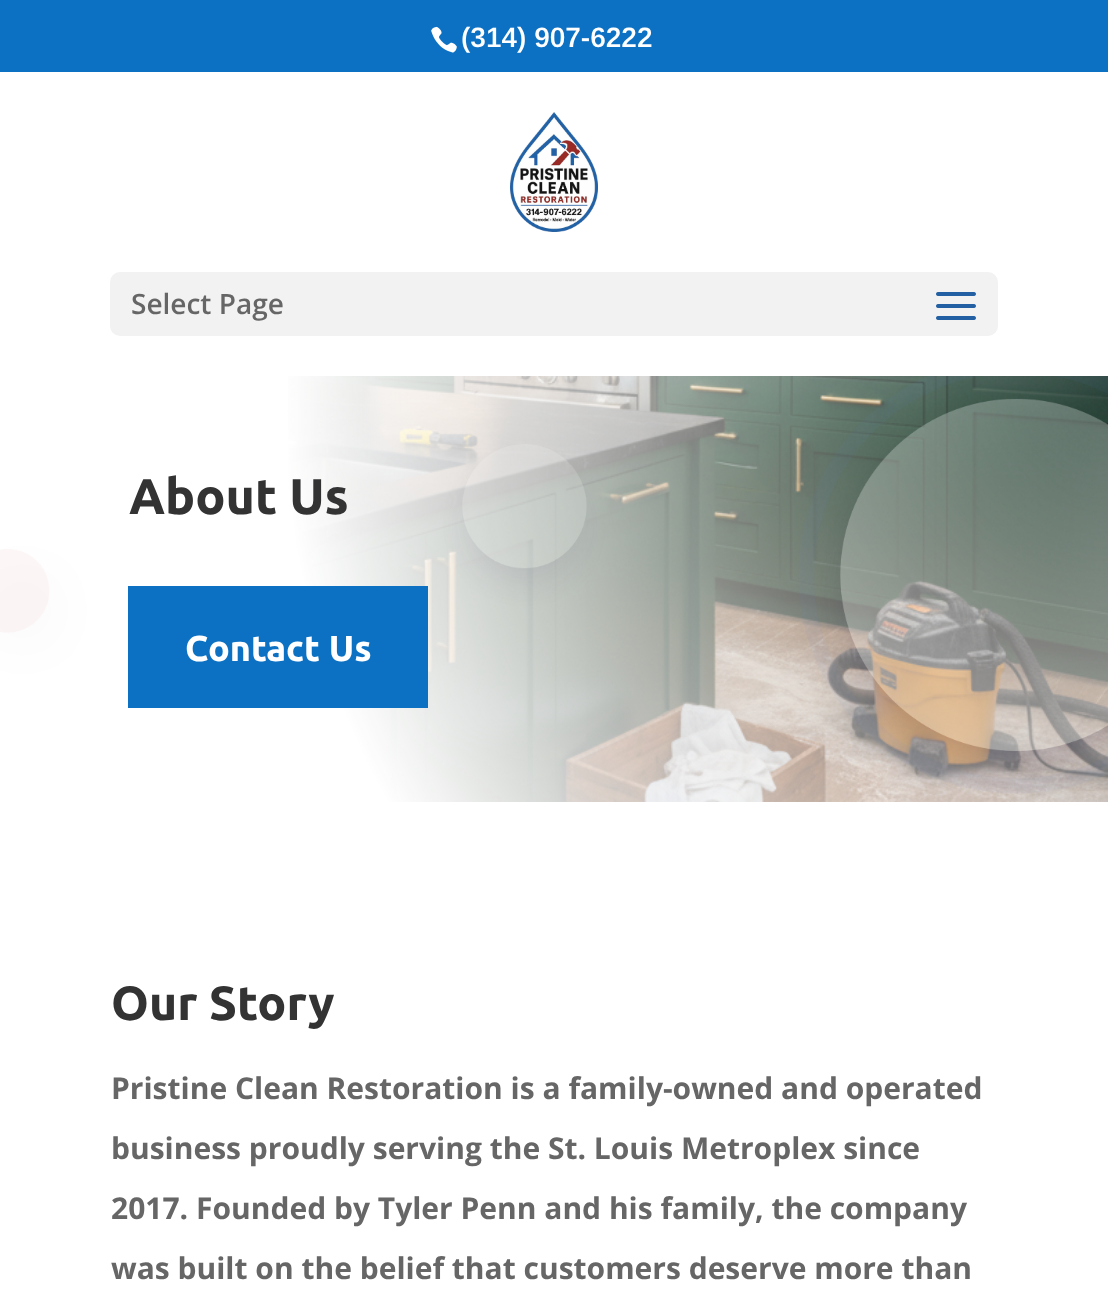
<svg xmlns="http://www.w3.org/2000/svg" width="1108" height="1302">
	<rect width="100%" height="100%" fill="#FFFFFF" />
	<rect x="0" y="0" width="1108" height="72" fill="#0C71C3" />
	<image x="431" y="26" width="26" height="27" href="assets/img1.png" />
	<text x="461" y="47" font-family="Arimo" font-size="28" font-weight="600" fill="#FFFFFF">(314) 907-6222</text>
	<image x="510" y="112" width="88" height="120" href="assets/img2.png" />
	<rect x="110" y="272" width="888" height="64" rx="10" fill="#F2F2F2" />
	<text x="131" y="314" font-family="Open Sans" font-size="28" font-weight="600" fill="#666666">Select Page</text>
	<image x="936" y="292" width="40" height="28" href="assets/img3.png" />
	<image x="288" y="376" width="820" height="426" href="assets/img4.png" />
	<image x="0" y="376" width="1108" height="426" href="assets/img5.png" />
	<text x="129" y="514" font-family="Ubuntu" font-size="50" font-weight="700" fill="#333333">About Us</text>
	<rect x="128" y="586" width="300" height="122" fill="#0C71C3" />
	<text x="185" y="661" font-family="Ubuntu" font-size="36" font-weight="700" fill="#FFFFFF">Contact Us</text>
	<text x="111" y="1020" font-family="Ubuntu" font-size="48" font-weight="700" fill="#333333">Our Story</text>
	<g font-family="Open Sans" font-size="30" font-weight="700" fill="#666666">
		<text x="111" y="1099">Pristine Clean Restoration is a family-owned and operated</text>
		<text x="111" y="1159">business proudly serving the St. Louis Metroplex since</text>
		<text x="111" y="1219">2017. Founded by Tyler Penn and his family, the company</text>
		<text x="111" y="1279">was built on the belief that customers deserve more than</text>
	</g>
</svg>
